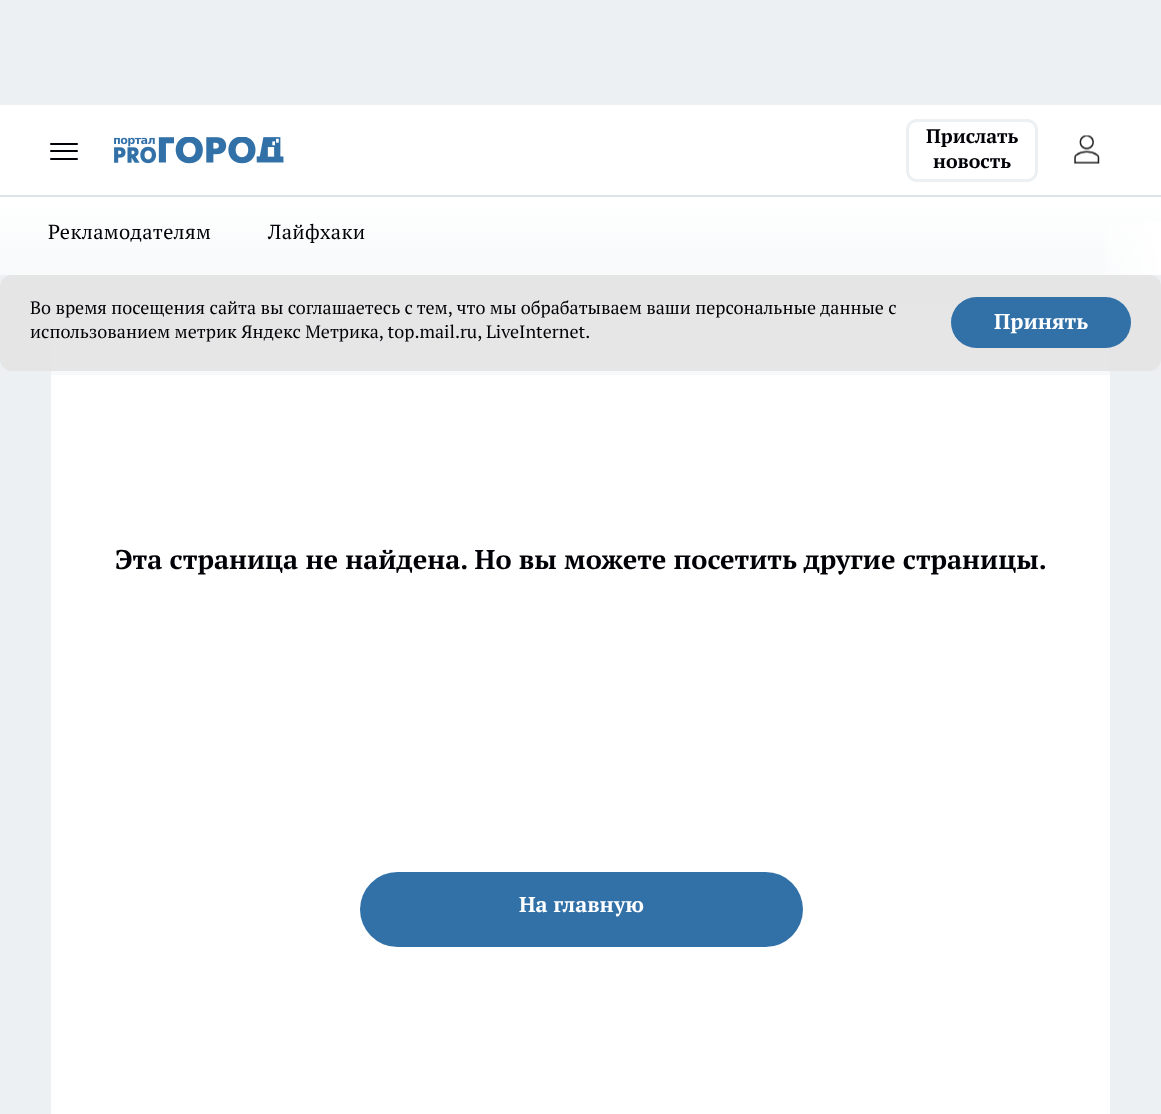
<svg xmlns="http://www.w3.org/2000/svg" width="1161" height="1114">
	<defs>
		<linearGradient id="g1" gradientUnits="userSpaceOnUse" x1="581" y1="196" x2="581" y2="275"><stop offset="0" stop-color="#FFFFFF" /><stop offset="1" stop-color="#F7F9FA" /></linearGradient>
		<linearGradient id="g2" gradientUnits="userSpaceOnUse" x1="1076" y1="236" x2="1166" y2="236"><stop offset="0" stop-color="#FFFFFF" stop-opacity="0" /><stop offset="1" stop-color="#FFFFFF" /></linearGradient>
	</defs>
	<rect width="100%" height="100%" fill="#ECF0F2" />
	<rect x="0" y="195" width="1161" height="2" fill="#DAE4E9" />
	<rect x="0" y="105" width="1161" height="90" fill="#FFFFFF" />
	<rect x="50" y="143" width="28" height="2" rx="1" fill="#000106" />
	<rect x="50" y="158" width="28" height="2" rx="1" fill="#000106" />
	<rect x="50" y="150" width="28" height="2" rx="1" fill="#000106" />
	<image x="114" y="137" width="170" height="27" href="assets/img1.png" />
	<rect x="907.5" y="120.5" width="129" height="60" rx="9.5" fill="none" stroke="#ECF0F2" stroke-width="3" />
	<g font-family="PT Serif" font-size="19.5" font-weight="700" fill="#000106">
		<text x="926" y="143">Прислать</text>
		<text x="933" y="168">новость</text>
	</g>
	<image x="1074" y="135" width="26" height="29" href="assets/img2.png" />
	<rect x="0" y="197" width="1161" height="78" fill="url(#g1)" />
	<g font-family="PT Serif" font-size="20.25" letter-spacing="0.4" fill="#000106">
		<text x="48" y="239">Рекламодателям</text>
		<text x="268" y="239">Лайфхаки</text>
	</g>
	<rect x="1105" y="221" width="56" height="54" fill="url(#g2)" />
	<path d="M66 305H1095C1103.5 305 1110 311.5 1110 320V375H51V320C51 311.5 57.5 305 66 305Z" fill="#F7F9FA" />
	<rect x="0" y="275" width="1161" height="96" rx="12" fill="#E3E3E3" fill-opacity="0.91" />
	<g font-family="PT Serif" font-size="18" fill="#000106">
		<text x="30" y="314">Во время посещения сайта вы соглашаетесь с тем, что мы обрабатываем ваши персональные данные с</text>
		<text x="30" y="338">использованием метрик Яндекс Метрика, top.mail.ru, LiveInternet.</text>
	</g>
	<rect x="951" y="297" width="180" height="51" rx="25.5" fill="#3271A8" />
	<text x="994" y="329" font-family="PT Serif" font-size="21.5" font-weight="700" fill="#FFFFFF">Принять</text>
	<rect x="51" y="375" width="1059" height="739" fill="#FFFFFF" />
	<text x="115" y="569" font-family="PT Serif" font-size="27.05" font-weight="700" fill="#000106">Эта страница не найдена. Но вы можете посетить другие страницы.</text>
	<rect x="360" y="872" width="443" height="75" rx="37.5" fill="#3271A8" />
	<text x="519" y="912" font-family="PT Serif" font-size="21.5" font-weight="700" fill="#FFFFFF">На главную</text>
</svg>
